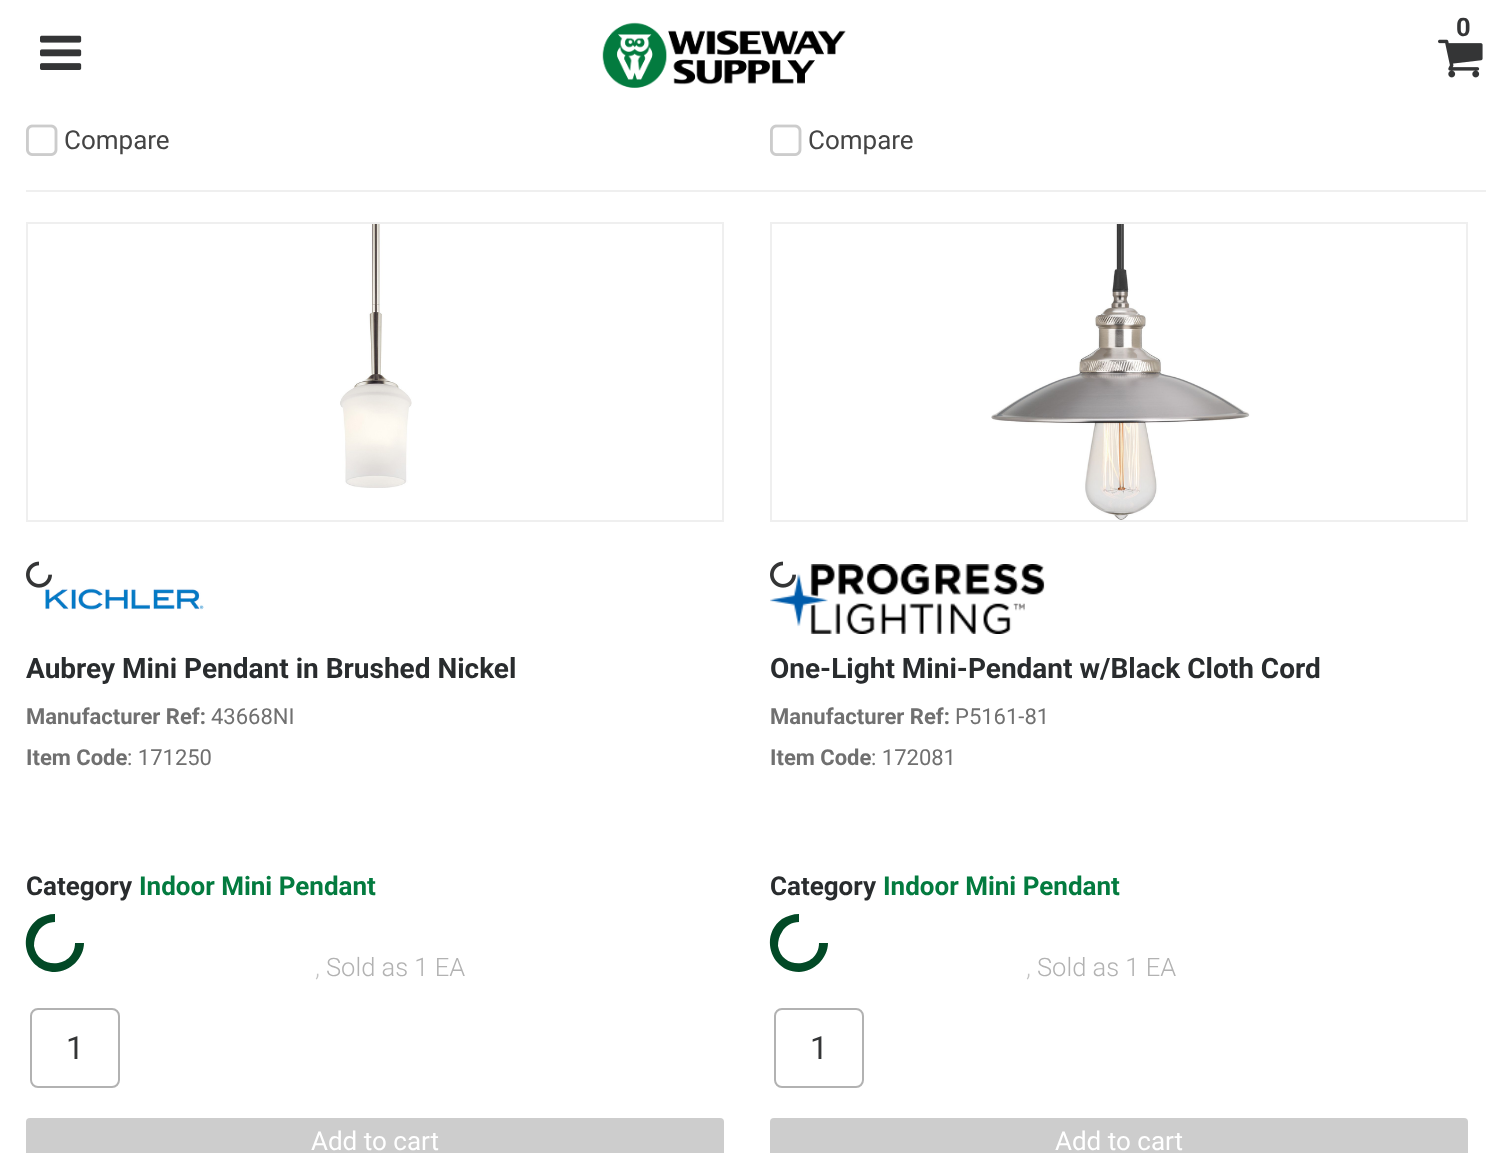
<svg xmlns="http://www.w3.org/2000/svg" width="1512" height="1153">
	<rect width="100%" height="100%" fill="#FFFFFF" />
	<image x="40" y="35" width="42" height="35" href="assets/img1.png" />
	<image x="602" y="22" width="244" height="66" href="assets/img2.png" />
	<text x="1456" y="36" font-family="Roboto" font-size="25.5" font-weight="700" fill="#343536">0</text>
	<image x="1438" y="39" width="45" height="39" href="assets/img3.png" />
	<rect x="26" y="190" width="1460" height="2" fill="#EFEFEF" />
	<image x="26" y="124" width="32" height="32" href="assets/img4.png" />
	<text x="64" y="149" font-family="Roboto" font-size="26" fill="#444444">Compare</text>
	<image x="770" y="124" width="32" height="32" href="assets/img4.png" />
	<text x="808" y="149" font-family="Roboto" font-size="26" fill="#444444">Compare</text>
	<rect x="27" y="223" width="696" height="298" fill="none" stroke="#EFEFEF" stroke-width="2" />
	<image x="340" y="224" width="72" height="264" href="assets/img5.png" />
	<image x="26" y="561" width="26" height="27" href="assets/img6.png" />
	<image x="45" y="588" width="159" height="22" href="assets/img7.png" />
	<text x="26" y="678" font-family="Roboto" font-size="28" font-weight="700" fill="#292C2E">Aubrey Mini Pendant in Brushed Nickel</text>
	<text x="26" y="724" font-family="Roboto" font-size="22" font-weight="700" fill="#707070">Manufacturer Ref:</text>
	<text x="211" y="724" font-family="Roboto" font-size="22" fill="#707070">43668NI</text>
	<text x="26" y="765" font-family="Roboto" font-size="22" font-weight="700" fill="#707070">Item Code</text>
	<text x="127" y="765" font-family="Roboto" font-size="22" fill="#707070">: 171250</text>
	<text x="26" y="895" font-family="Roboto" font-size="26" font-weight="700" fill="#292C2E">Category</text>
	<text x="139" y="895" font-family="Roboto" font-size="26" font-weight="700" fill="#037B3F">Indoor Mini Pendant</text>
	<path d="M55 972C27 972 15 936 38 919C43 916 49 914 55 914V922C48 922 41 926 38 932C35 936 34 941 34 946C38 971 75 968 75 943H84C84 958 70 972 55 972Z" fill="#024926" />
	<text x="315" y="976" font-family="Roboto" font-size="25.5" font-weight="300" fill="#C4C4C4">,</text>
	<text x="326" y="976" font-family="Roboto" font-size="25.5" font-weight="300" fill="#B2B2B2">Sold as 1 EA</text>
	<rect x="31" y="1009" width="88" height="78" rx="7" fill="none" stroke="#B2B2B2" stroke-width="2" />
	<text x="66" y="1059" font-family="Roboto" font-size="32" fill="#343536">1</text>
	<rect x="26" y="1118" width="698" height="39" rx="4" fill="#CDCDCD" />
	<text x="311" y="1150" font-family="Roboto" font-size="26" fill="#FFFFFF">Add to cart</text>
	<rect x="771" y="223" width="696" height="298" fill="none" stroke="#EFEFEF" stroke-width="2" />
	<image x="991" y="224" width="259" height="296" href="assets/img8.png" />
	<image x="770" y="564" width="275" height="70" href="assets/img10.png" />
	<image x="770" y="561" width="26" height="27" href="assets/img9.png" />
	<text x="770" y="678" font-family="Roboto" font-size="28" font-weight="700" fill="#292C2E">One-Light Mini-Pendant w/Black Cloth Cord</text>
	<text x="770" y="724" font-family="Roboto" font-size="22" font-weight="700" fill="#707070">Manufacturer Ref:</text>
	<text x="955" y="724" font-family="Roboto" font-size="22" fill="#707070">P5161-81</text>
	<text x="770" y="765" font-family="Roboto" font-size="22" font-weight="700" fill="#707070">Item Code</text>
	<text x="871" y="765" font-family="Roboto" font-size="22" fill="#707070">: 172081</text>
	<text x="770" y="895" font-family="Roboto" font-size="26" font-weight="700" fill="#292C2E">Category</text>
	<text x="883" y="895" font-family="Roboto" font-size="26" font-weight="700" fill="#037B3F">Indoor Mini Pendant</text>
	<path d="M799 972C771 972 759 936 782 919C787 916 793 914 799 914V922C792 922 785 926 782 932C779 936 778 941 778 946C782 971 819 968 819 943H828C828 958 814 972 799 972Z" fill="#024926" />
	<text x="1026" y="976" font-family="Roboto" font-size="25.5" font-weight="300" fill="#C4C4C4">,</text>
	<text x="1037" y="976" font-family="Roboto" font-size="25.5" font-weight="300" fill="#B2B2B2">Sold as 1 EA</text>
	<rect x="775" y="1009" width="88" height="78" rx="7" fill="none" stroke="#B2B2B2" stroke-width="2" />
	<text x="810" y="1059" font-family="Roboto" font-size="32" fill="#343536">1</text>
	<rect x="770" y="1118" width="698" height="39" rx="4" fill="#CDCDCD" />
	<text x="1055" y="1150" font-family="Roboto" font-size="26" fill="#FFFFFF">Add to cart</text>
</svg>
